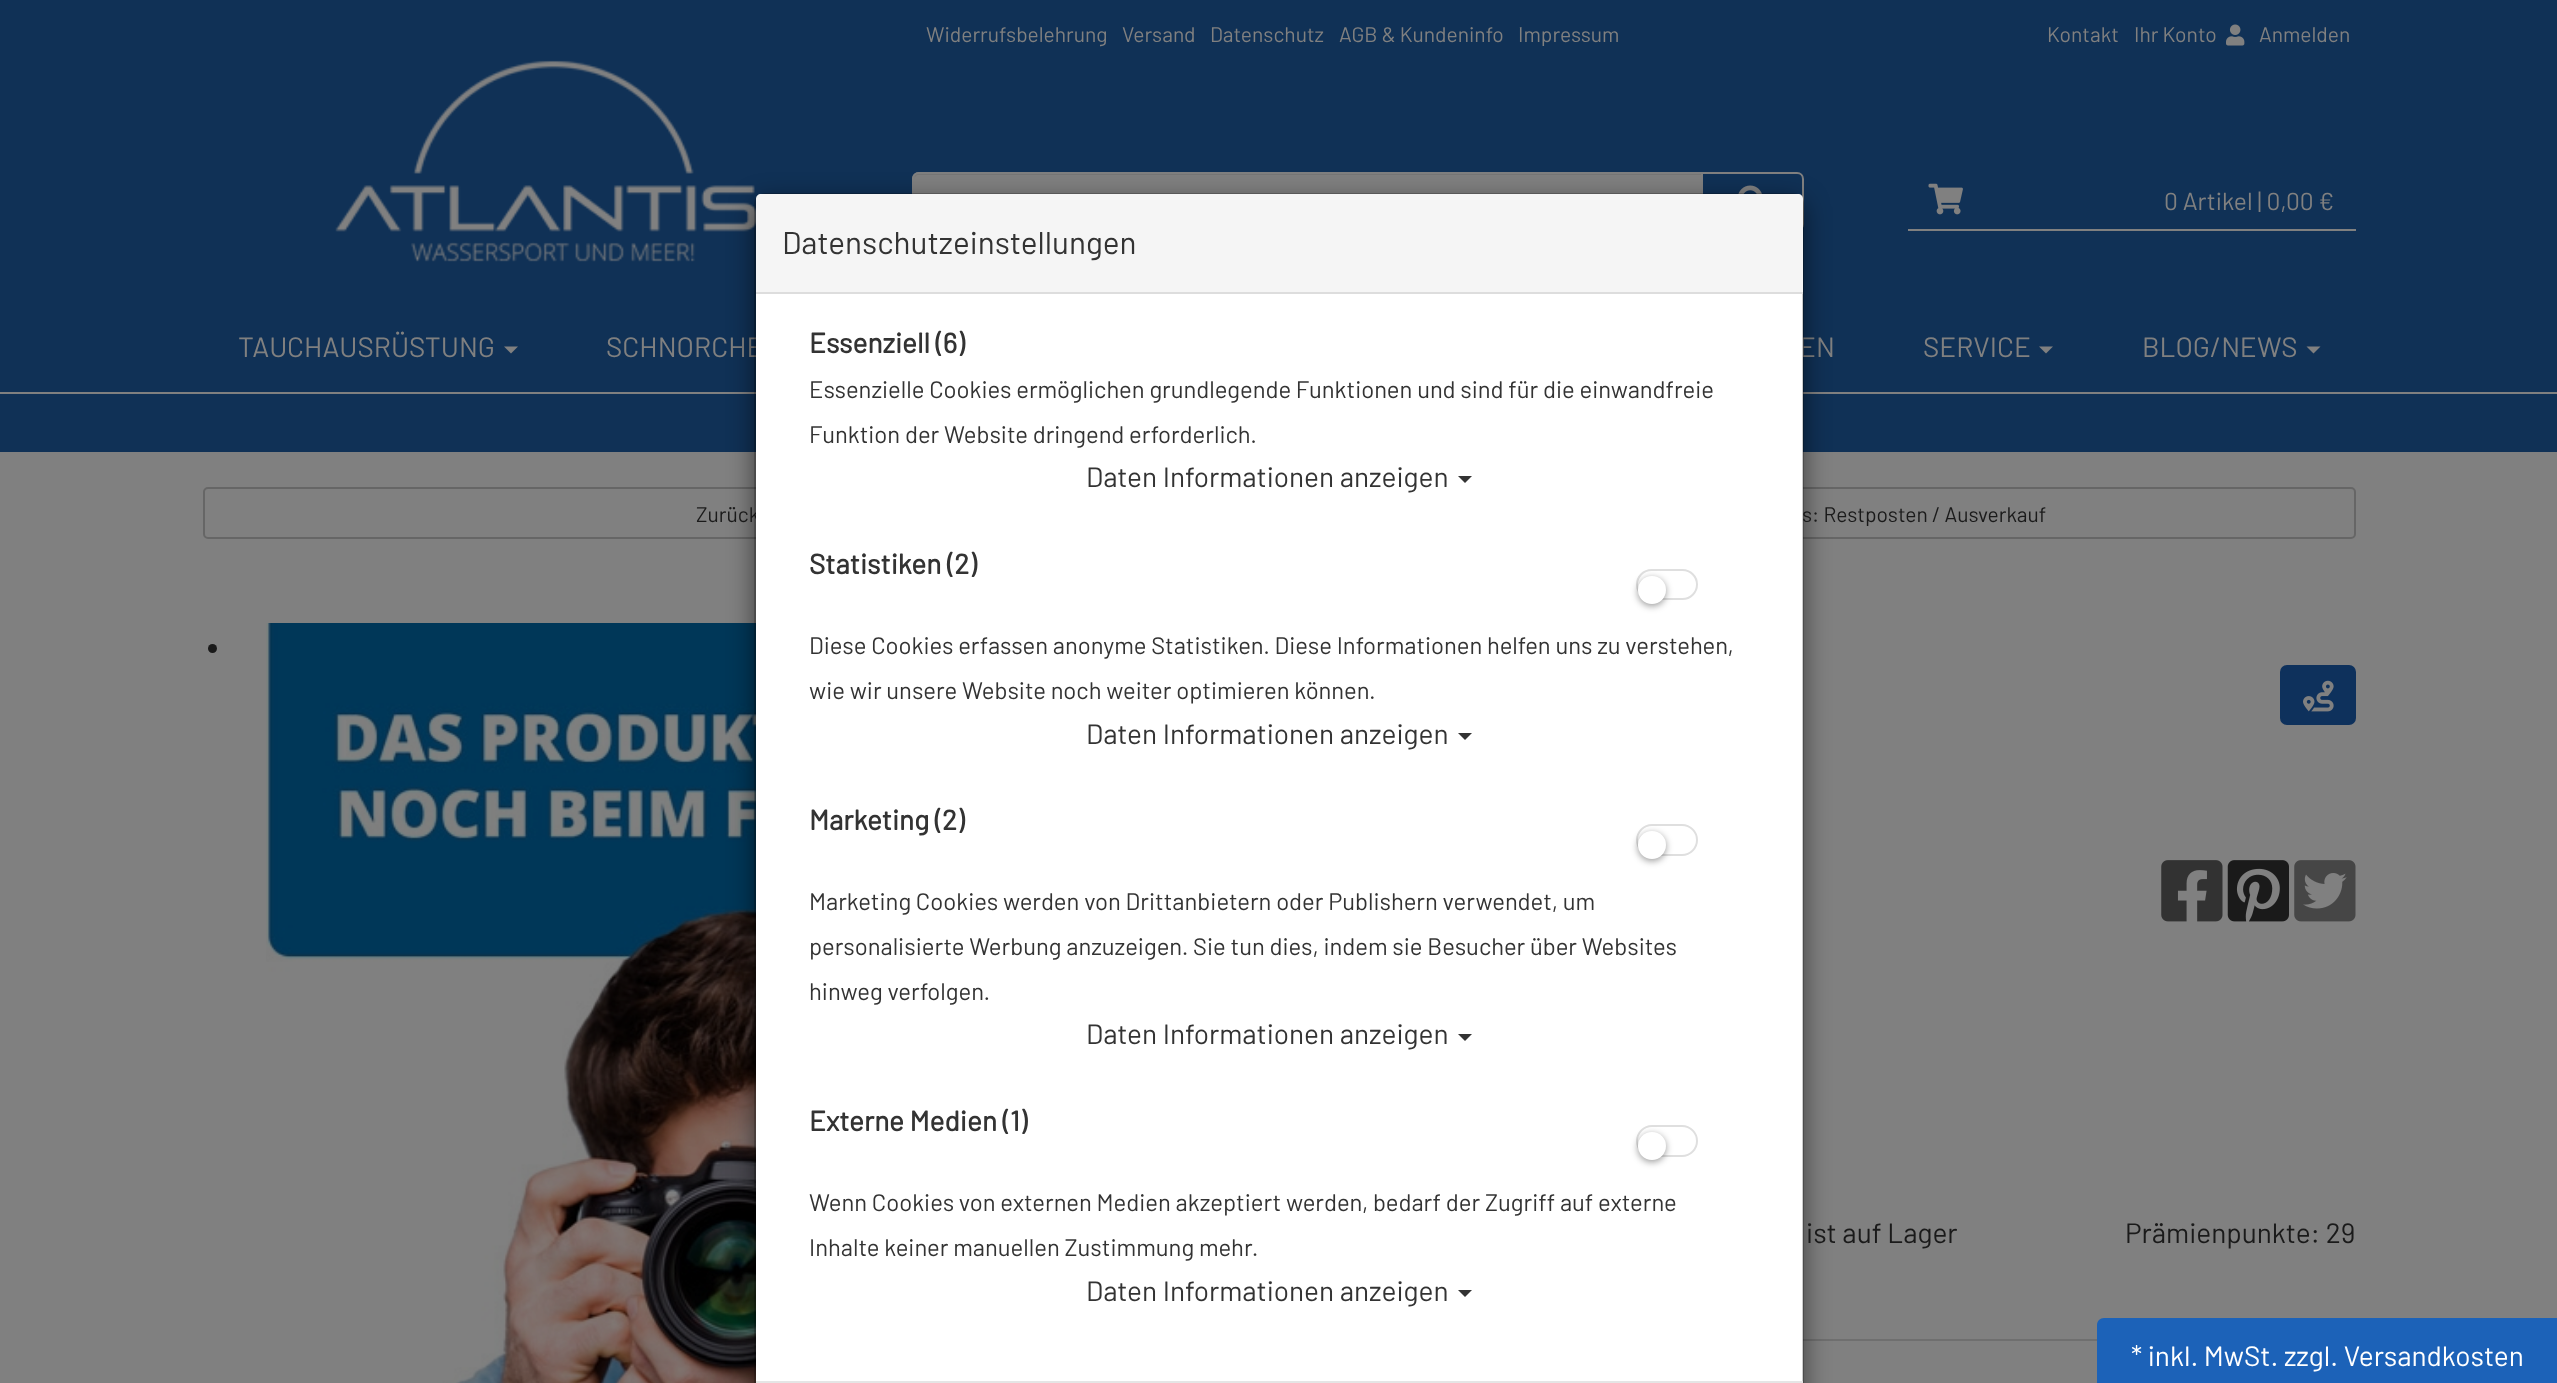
<svg xmlns="http://www.w3.org/2000/svg" width="2557" height="1383">
	<rect width="100%" height="100%" fill="#808080" />
	<rect x="0" y="0" width="2557" height="452" fill="#103156" />
	<g font-family="Barlow" font-size="21" fill="#808080">
		<text x="926" y="42">Widerrufsbelehrung</text>
		<text x="1122" y="42">Versand</text>
		<text x="1210" y="42">Datenschutz</text>
		<text x="1339" y="42">AGB &amp; Kundeninfo</text>
		<text x="1518" y="42">Impressum</text>
		<text x="2047" y="42">Kontakt</text>
		<text x="2134" y="42">Ihr Konto</text>
	</g>
	<image x="2226" y="24" width="19" height="22" href="assets/img1.png" />
	<text x="2259" y="42" font-family="Barlow" font-size="21" fill="#808080">Anmelden</text>
	<image x="335" y="60" width="421" height="202" href="assets/img2.png" />
	<path d="M919 172H1703V231H919C915 231 912 228 912 224V179C912 175 915 172 919 172Z" fill="#808080" />
	<path d="M919 175H1701V173H919C915 173 914 177 914 180C914 177 916 175 919 175Z" fill="#767676" />
	<path d="M919 173H1702V230H919C915.5 230 913 227.5 913 224V179C913 175.5 915.5 173 919 173Z" fill="none" stroke="#808080" stroke-width="2" />
	<path d="M1702 173H1797C1800.5 173 1803 175.5 1803 179V224C1803 227.5 1800.5 230 1797 230H1702Z" fill="none" stroke="#808080" stroke-width="2" />
	<image x="1738" y="185" width="24" height="9" href="assets/img3.png" />
	<rect x="1908" y="229" width="448" height="2" fill="#808080" />
	<image x="1928" y="183" width="35" height="32" href="assets/img4.png" />
	<text x="2164" y="210" font-family="Barlow" font-size="24.5" fill="#808080">0 Artikel | 0,00 €</text>
	<rect x="0" y="392" width="2557" height="2" fill="#808080" />
	<text x="238" y="357" font-family="Barlow" font-size="28" fill="#808080">TAUCHAUSRÜSTUNG</text>
	<path d="M504 346.5H518L511 353.5Z" fill="#808080" />
	<g font-family="Barlow" font-size="28" fill="#808080">
		<text x="606" y="357">SCHNORCHE</text>
		<text x="1799" y="357">EN</text>
		<text x="1923" y="357">SERVICE</text>
	</g>
	<path d="M2039 346.5H2053L2046 353.5Z" fill="#808080" />
	<text x="2142" y="357" font-family="Barlow" font-size="28" fill="#808080">BLOG/NEWS</text>
	<path d="M2306.5 346.5H2320.5L2313.5 353.5Z" fill="#808080" />
	<rect x="204" y="488" width="1048" height="50" rx="4" fill="none" stroke="#666666" stroke-width="2" />
	<rect x="1307" y="488" width="1048" height="50" rx="4" fill="none" stroke="#666666" stroke-width="2" />
	<image x="266" y="623" width="490" height="760" href="assets/img5.png" />
	<rect x="1307" y="1340" width="1048" height="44" fill="none" stroke="#6F6F6F" stroke-width="2" />
	<rect x="754" y="201" width="1050" height="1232" rx="11" fill="#000000" fill-opacity="0.5" filter="blur(13px)" />
	<text x="696" y="522" font-family="Barlow" font-size="21" fill="#1A1A1A">Zurück</text>
	<path d="M765 194H1794C1799 194 1803 198 1803 203V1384H756V203C756 198 760 194 765 194Z" fill="#FFFFFF" />
	<text x="1802" y="522" font-family="Barlow" font-size="21" fill="#1A1A1A">s: Restposten / Ausverkauf</text>
	<rect x="755" y="194" width="1048" height="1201" rx="10" fill="none" stroke="#000000" stroke-opacity="0.2" stroke-width="2" />
	<path d="M761 194H1798C1801 194 1803 196 1803 199V294H756V199C756 196 758 194 761 194Z" fill="#F5F5F5" />
	<rect x="756" y="292" width="1047" height="2" fill="#DDDDDD" />
	<text x="782" y="254" font-family="Barlow" font-size="31.5" fill="#333333">Datenschutzeinstellungen</text>
	<text x="809" y="353" font-family="Barlow" font-size="28" font-weight="700" fill="#333333">Essenziell (6)</text>
	<g font-family="Barlow" font-size="23.8" fill="#333333">
		<text x="809" y="398">Essenzielle Cookies ermöglichen grundlegende Funktionen und sind für die einwandfreie</text>
		<text x="809" y="443">Funktion der Website dringend erforderlich.</text>
	</g>
	<text x="1086" y="487" font-family="Barlow" font-size="28" fill="#333333">Daten Informationen anzeigen</text>
	<path d="M1458 476H1472L1465 483Z" fill="#333333" />
	<text x="809" y="574" font-family="Barlow" font-size="28" font-weight="700" fill="#333333">Statistiken (2)</text>
	<rect x="1637" y="570" width="60" height="29" rx="14.5" fill="none" stroke="#DFDFDF" stroke-width="2" />
	<rect x="1638" y="578" width="28" height="28" rx="14" fill="#000000" fill-opacity="0.4" filter="blur(3.5px)" />
	<circle cx="1652" cy="590" r="14" fill="#FFFFFF" />
	<g font-family="Barlow" font-size="23.8" fill="#333333">
		<text x="809" y="654">Diese Cookies erfassen anonyme Statistiken. Diese Informationen helfen uns zu verstehen,</text>
		<text x="809" y="699">wie wir unsere Website noch weiter optimieren können.</text>
	</g>
	<text x="1086" y="744" font-family="Barlow" font-size="28" fill="#333333">Daten Informationen anzeigen</text>
	<path d="M1458 733H1472L1465 740Z" fill="#333333" />
	<text x="809" y="830" font-family="Barlow" font-size="28" font-weight="700" fill="#333333">Marketing (2)</text>
	<rect x="1637" y="825" width="60" height="30" rx="15" fill="none" stroke="#DFDFDF" stroke-width="2" />
	<rect x="1638" y="833" width="28" height="28" rx="14" fill="#000000" fill-opacity="0.4" filter="blur(3.5px)" />
	<circle cx="1652" cy="845" r="14" fill="#FFFFFF" />
	<g font-family="Barlow" font-size="23.8" fill="#333333">
		<text x="809" y="910">Marketing Cookies werden von Drittanbietern oder Publishern verwendet, um</text>
		<text x="809" y="955">personalisierte Werbung anzuzeigen. Sie tun dies, indem sie Besucher über Websites</text>
		<text x="809" y="1000">hinweg verfolgen.</text>
	</g>
	<text x="1086" y="1044" font-family="Barlow" font-size="28" fill="#333333">Daten Informationen anzeigen</text>
	<path d="M1458 1034H1472L1465 1041Z" fill="#333333" />
	<text x="809" y="1131" font-family="Barlow" font-size="28" font-weight="700" fill="#333333">Externe Medien (1)</text>
	<rect x="1637" y="1126" width="60" height="30" rx="15" fill="none" stroke="#DFDFDF" stroke-width="2" />
	<rect x="1638" y="1134" width="28" height="28" rx="14" fill="#000000" fill-opacity="0.4" filter="blur(3.5px)" />
	<circle cx="1652" cy="1146" r="14" fill="#FFFFFF" />
	<g font-family="Barlow" font-size="23.8" fill="#333333">
		<text x="809" y="1211">Wenn Cookies von externen Medien akzeptiert werden, bedarf der Zugriff auf externe</text>
		<text x="809" y="1256">Inhalte keiner manuellen Zustimmung mehr.</text>
	</g>
	<text x="1086" y="1301" font-family="Barlow" font-size="28" fill="#333333">Daten Informationen anzeigen</text>
	<path d="M1458 1290H1472L1465 1297Z" fill="#333333" />
	<rect x="756" y="1381" width="1047" height="2" fill="#E5E5E5" />
	<circle cx="212.5" cy="648.5" r="4.5" fill="#1A1A1A" />
	<rect x="2281" y="666" width="74" height="58" rx="6" fill="#0E315C" stroke="#0E315C" stroke-width="2" />
	<image x="2303" y="680" width="31" height="32" href="assets/img6.png" />
	<image x="2161" y="860" width="62" height="62" href="assets/img7.png" />
	<image x="2227" y="860" width="62" height="62" href="assets/img8.png" />
	<image x="2294" y="860" width="62" height="62" href="assets/img9.png" />
	<g font-family="Barlow" font-size="28" fill="#1A1A1A">
		<text x="1806" y="1243">ist auf Lager</text>
		<text x="2125" y="1243">Prämienpunkte: 29</text>
	</g>
	<path d="M2104 1318H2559V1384H2097V1325C2097 1321 2100 1318 2104 1318Z" fill="#1C62B8" />
	<text x="2131" y="1366" font-family="Barlow" font-size="28" fill="#FFFFFF">* inkl. MwSt. zzgl. Versandkosten</text>
</svg>
